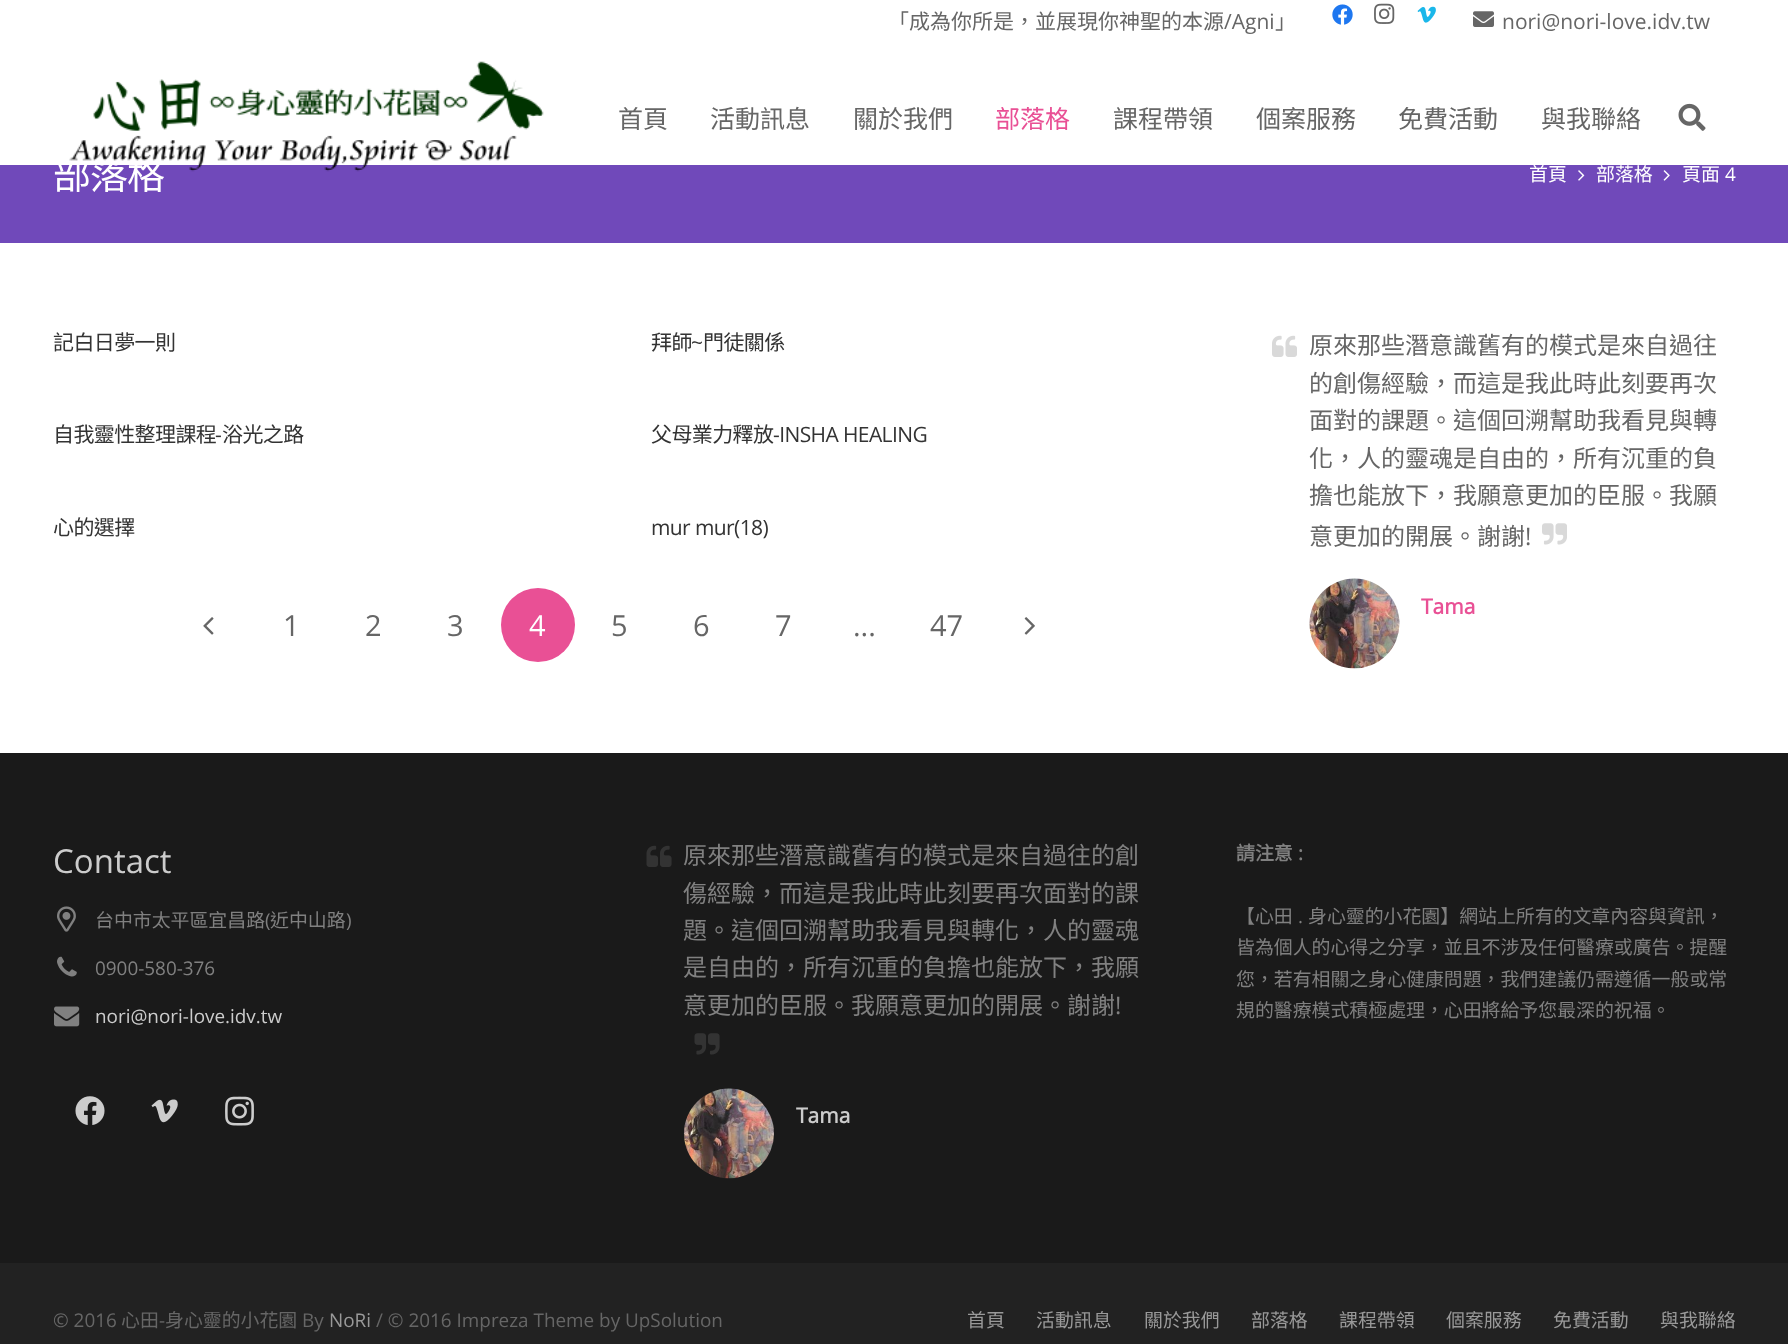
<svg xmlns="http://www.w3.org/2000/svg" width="1788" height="1344">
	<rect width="100%" height="100%" fill="#FFFFFF" />
	<text x="888" y="29" font-family="Noto Sans CJK TC" font-size="21" fill="#666666">「成為你所是，並展現你神聖的本源</text>
	<text x="1224" y="29" font-family="Open Sans" font-size="21" fill="#666666">/Agni</text>
	<text x="1275" y="29" font-family="Noto Sans CJK TC" font-size="21" fill="#666666">」</text>
	<image x="1332" y="4" width="21" height="21" href="assets/img1.png" />
	<image x="1374" y="3" width="21" height="21" href="assets/img2.png" />
	<image x="1417" y="6" width="19" height="17" href="assets/img3.png" />
	<image x="1473" y="11" width="21" height="16" href="assets/img4.png" />
	<text x="1502" y="29" font-family="Open Sans" font-size="21" fill="#666666">nori@nori-love.idv.tw</text>
	<rect x="0" y="165" width="1788" height="78" fill="#7049BA" />
	<text x="53" y="189" font-family="Noto Sans CJK TC" font-size="38" letter-spacing="-1" fill="#FFFFFF">部落格</text>
	<image x="69" y="61" width="475" height="111" href="assets/img5.png" />
	<g font-family="Noto Sans CJK TC" font-size="25" fill="#666666">
		<text x="618" y="128">首頁</text>
		<text x="710" y="128">活動訊息</text>
		<text x="853" y="128">關於我們</text>
	</g>
	<text x="995" y="128" font-family="Noto Sans CJK TC" font-size="25" fill="#E95095">部落格</text>
	<g font-family="Noto Sans CJK TC" font-size="25" fill="#666666">
		<text x="1113" y="128">課程帶領</text>
		<text x="1256" y="128">個案服務</text>
		<text x="1398" y="128">免費活動</text>
		<text x="1541" y="128">與我聯絡</text>
	</g>
	<image x="1678" y="103" width="28" height="28" href="assets/img6.png" />
	<text x="1529" y="181" font-family="Noto Sans CJK TC" font-size="18.9" fill="#FFFFFF">首頁</text>
	<image x="1578" y="170" width="7" height="11" href="assets/img7.png" />
	<text x="1596" y="181" font-family="Noto Sans CJK TC" font-size="18.9" fill="#FFFFFF">部落格</text>
	<image x="1663" y="170" width="7" height="11" href="assets/img8.png" />
	<text x="1682" y="181" font-family="Noto Sans CJK TC" font-size="18.9" fill="#FFFFFF">頁面</text>
	<text x="1725" y="181" font-family="Open Sans" font-size="18.9" fill="#FFFFFF">4</text>
	<g font-family="Noto Sans CJK TC" font-size="21" letter-spacing="-0.6" fill="#333333">
		<text x="53" y="350">記白日夢一則</text>
		<text x="651" y="350">拜師</text>
	</g>
	<text x="691" y="350" font-family="Open Sans" font-size="21" letter-spacing="-0.6" fill="#333333">~</text>
	<g font-family="Noto Sans CJK TC" font-size="21" letter-spacing="-0.6" fill="#333333">
		<text x="703" y="350">門徒關係</text>
		<text x="53" y="442">自我靈性整理課程</text>
	</g>
	<text x="215" y="442" font-family="Open Sans" font-size="21" letter-spacing="-0.6" fill="#333333">-</text>
	<g font-family="Noto Sans CJK TC" font-size="21" letter-spacing="-0.6" fill="#333333">
		<text x="222" y="442">浴光之路</text>
		<text x="651" y="442">父母業力釋放</text>
	</g>
	<text x="773" y="442" font-family="Open Sans" font-size="21" letter-spacing="-0.6" fill="#333333">-INSHA HEALING</text>
	<text x="53" y="535" font-family="Noto Sans CJK TC" font-size="21" letter-spacing="-0.6" fill="#333333">心的選擇</text>
	<text x="651" y="535" font-family="Open Sans" font-size="21" letter-spacing="-0.6" fill="#333333">mur mur(18)</text>
	<image x="203" y="617" width="11" height="18" href="assets/img9.png" />
	<g font-family="Open Sans" font-size="29" fill="#666666">
		<text x="283" y="636">1</text>
		<text x="365" y="636">2</text>
		<text x="447" y="636">3</text>
	</g>
	<circle cx="538" cy="625" r="37" fill="#E95095" />
	<text x="529" y="636" font-family="Open Sans" font-size="29" fill="#FFFFFF">4</text>
	<g font-family="Open Sans" font-size="29" fill="#666666">
		<text x="611" y="636">5</text>
		<text x="693" y="636">6</text>
		<text x="775" y="636">7</text>
		<text x="853" y="636">...</text>
		<text x="930" y="636">47</text>
	</g>
	<image x="1024" y="617" width="11" height="18" href="assets/img10.png" />
	<image x="1272" y="335" width="25" height="22" href="assets/img11.png" />
	<g font-family="Noto Sans CJK TC" font-size="24" fill="#666666">
		<text x="1309" y="354">原來那些潛意識舊有的模式是來自過往</text>
		<text x="1309" y="392">的創傷經驗，而這是我此時此刻要再次</text>
		<text x="1309" y="429">面對的課題。這個回溯幫助我看見與轉</text>
		<text x="1309" y="467">化，人的靈魂是自由的，所有沉重的負</text>
		<text x="1309" y="504">擔也能放下，我願意更加的臣服。我願</text>
		<text x="1309" y="545">意更加的開展。謝謝</text>
	</g>
	<text x="1525" y="545" font-family="Open Sans" font-size="24" fill="#666666">!</text>
	<image x="1542" y="523" width="25" height="22" href="assets/img12.png" />
	<image x="1309" y="578" width="91" height="91" href="assets/img13.png" />
	<text x="1421" y="614" font-family="Open Sans" font-size="21" font-weight="700" fill="#E95095">Tama</text>
	<rect x="0" y="753" width="1788" height="510" fill="#1A1A1A" />
	<text x="53" y="873" font-family="Open Sans" font-size="33" fill="#CCCCCC">Contact</text>
	<image x="57" y="906" width="19" height="26" href="assets/img14.png" />
	<text x="95" y="927" font-family="Noto Sans CJK TC" font-size="18.9" fill="#808080">台中市太平區宜昌路</text>
	<text x="265" y="927" font-family="Open Sans" font-size="18.9" fill="#808080">(</text>
	<text x="270" y="927" font-family="Noto Sans CJK TC" font-size="18.9" fill="#808080">近中山路</text>
	<text x="346" y="927" font-family="Open Sans" font-size="18.9" fill="#808080">)</text>
	<image x="57" y="956" width="20" height="21" href="assets/img15.png" />
	<text x="95" y="975" font-family="Open Sans" font-size="18.9" fill="#808080">0900-580-376</text>
	<image x="54" y="1006" width="26" height="21" href="assets/img16.png" />
	<text x="95" y="1023" font-family="Open Sans" font-size="18.9" fill="#CCCCCC">nori@nori-love.idv.tw</text>
	<image x="75" y="1096" width="30" height="29" href="assets/img17.png" />
	<image x="151" y="1099" width="27" height="24" href="assets/img18.png" />
	<image x="225" y="1096" width="29" height="30" href="assets/img19.png" />
	<image x="646" y="845" width="26" height="22" href="assets/img20.png" />
	<g font-family="Noto Sans CJK TC" font-size="24" fill="#808080">
		<text x="683" y="864">原來那些潛意識舊有的模式是來自過往的創</text>
		<text x="683" y="902">傷經驗，而這是我此時此刻要再次面對的課</text>
		<text x="683" y="939">題。這個回溯幫助我看見與轉化，人的靈魂</text>
		<text x="683" y="976">是自由的，所有沉重的負擔也能放下，我願</text>
		<text x="683" y="1014">意更加的臣服。我願意更加的開展。謝謝</text>
	</g>
	<text x="1115" y="1014" font-family="Open Sans" font-size="24" fill="#808080">!</text>
	<image x="694" y="1033" width="26" height="22" href="assets/img21.png" />
	<image x="683" y="1088" width="91" height="91" href="assets/img22.png" />
	<text x="796" y="1123" font-family="Open Sans" font-size="21" font-weight="700" fill="#CCCCCC">Tama</text>
	<text x="1236" y="860" font-family="Noto Sans CJK TC" font-size="18.9" font-weight="700" fill="#808080">請注意</text>
	<text x="1298" y="860" font-family="Open Sans" font-size="18.9" font-weight="700" fill="#808080">:</text>
	<text x="1236" y="923" font-family="Noto Sans CJK TC" font-size="18.9" fill="#808080">【心田</text>
	<text x="1298" y="923" font-family="Open Sans" font-size="18.9" fill="#808080">.</text>
	<g font-family="Noto Sans CJK TC" font-size="18.9" fill="#808080">
		<text x="1308" y="923">身心靈的小花園】網站上所有的文章內容與資訊，</text>
		<text x="1236" y="954">皆為個人的心得之分享，並且不涉及任何醫療或廣告。提醒</text>
		<text x="1236" y="986">您，若有相關之身心健康問題，我們建議仍需遵循一般或常</text>
		<text x="1236" y="1017">規的醫療模式積極處理，心田將給予您最深的祝福。</text>
	</g>
	<rect x="0" y="1263" width="1788" height="81" fill="#222222" />
	<text x="53" y="1327" font-family="Open Sans" font-size="18.9" fill="#666666">© 2016</text>
	<text x="121" y="1327" font-family="Noto Sans CJK TC" font-size="18.9" fill="#666666">心田</text>
	<text x="159" y="1327" font-family="Open Sans" font-size="18.9" fill="#666666">-</text>
	<text x="165" y="1327" font-family="Noto Sans CJK TC" font-size="18.9" fill="#666666">身心靈的小花園</text>
	<text x="302" y="1327" font-family="Open Sans" font-size="18.9" fill="#666666">By</text>
	<text x="329" y="1327" font-family="Open Sans" font-size="18.9" fill="#999999">NoRi</text>
	<text x="376" y="1327" font-family="Open Sans" font-size="18.9" fill="#666666">/ © 2016 Impreza Theme by UpSolution</text>
	<g font-family="Noto Sans CJK TC" font-size="18.9" fill="#999999">
		<text x="967" y="1327">首頁</text>
		<text x="1036" y="1327">活動訊息</text>
		<text x="1144" y="1327">關於我們</text>
		<text x="1251" y="1327">部落格</text>
		<text x="1339" y="1327">課程帶領</text>
		<text x="1446" y="1327">個案服務</text>
		<text x="1553" y="1327">免費活動</text>
		<text x="1660" y="1327">與我聯絡</text>
	</g>
</svg>
